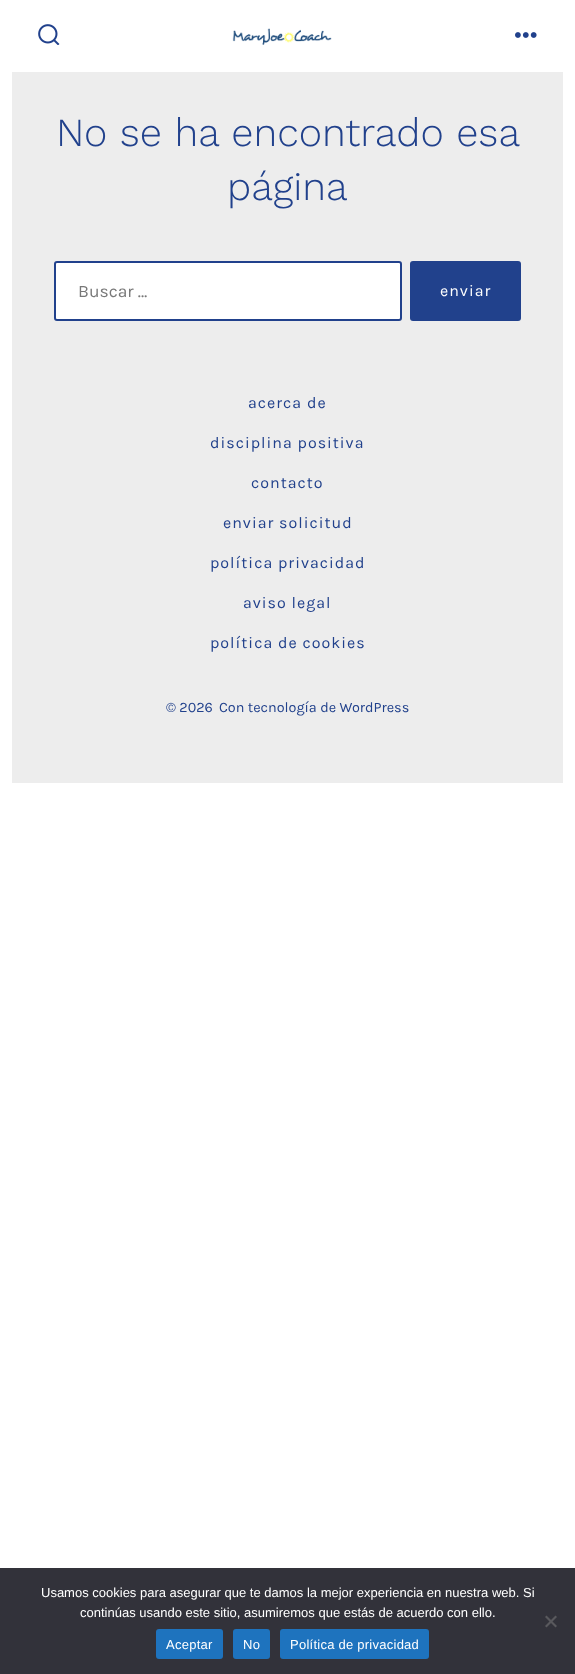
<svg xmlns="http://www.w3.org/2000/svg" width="575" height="1674">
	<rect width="100%" height="100%" fill="#FFFFFF" />
	<rect x="12" y="72" width="551" height="711" fill="#EDEDED" />
	<image x="38" y="24" width="22" height="21" href="assets/img1.png" />
	<image x="232" y="28" width="100" height="17" href="assets/img2.png" />
	<image x="515" y="32" width="22" height="6" href="assets/img3.png" />
	<g font-family="Work Sans" font-size="39.75" font-weight="300" fill="#21418C">
		<text x="56" y="146">No se ha encontrado esa</text>
		<text x="227" y="200">página</text>
	</g>
	<rect x="55" y="262" width="346" height="58" rx="2" fill="#FFFFFF" stroke="#21418C" stroke-width="2" />
	<text x="78" y="297" font-family="Karla" font-size="17.5" fill="#787878">Buscar …</text>
	<rect x="410" y="261" width="111" height="60" rx="3" fill="#21418C" />
	<text x="440" y="296" font-family="Karla" font-size="16" letter-spacing="1" fill="#FFFFFF">enviar</text>
	<g font-family="Karla" font-size="16" letter-spacing="1" fill="#21418C">
		<text x="248" y="408">acerca de</text>
		<text x="210" y="448">disciplina positiva</text>
		<text x="251" y="488">contacto</text>
		<text x="223" y="528">enviar solicitud</text>
		<text x="210" y="568">política privacidad</text>
		<text x="243" y="608">aviso legal</text>
		<text x="210" y="648">política de cookies</text>
	</g>
	<g font-family="Karla" font-size="14.4" fill="#21418C">
		<text x="166" y="712">© 2026</text>
		<text x="219" y="712">Con tecnología de WordPress</text>
	</g>
	<rect x="0" y="1568" width="575" height="106" fill="#32323A" />
	<g font-family="Liberation Sans" font-size="13" fill="#FFFFFF">
		<text x="41" y="1597">Usamos cookies para asegurar que te damos la mejor experiencia en nuestra web. Si</text>
		<text x="80" y="1617">continúas usando este sitio, asumiremos que estás de acuerdo con ello.</text>
	</g>
	<path d="M555.5 1615.5L557 1617L546.5 1627.5L545 1626Z" fill="#59595D" />
	<path d="M545 1617L546.5 1615.5L557 1626L555.5 1627.5Z" fill="#59595D" />
	<rect x="156" y="1629" width="67" height="30" rx="3" fill="#1E73BE" />
	<text x="166" y="1649" font-family="Liberation Sans" font-size="13" letter-spacing="0.25" fill="#FFFFFF">Aceptar</text>
	<rect x="233" y="1629" width="37" height="30" rx="3" fill="#1E73BE" />
	<text x="243" y="1649" font-family="Liberation Sans" font-size="13" letter-spacing="0.25" fill="#FFFFFF">No</text>
	<rect x="280" y="1629" width="149" height="30" rx="3" fill="#1E73BE" />
	<text x="290" y="1649" font-family="Liberation Sans" font-size="13" letter-spacing="0.25" fill="#FFFFFF">Política de privacidad</text>
</svg>
